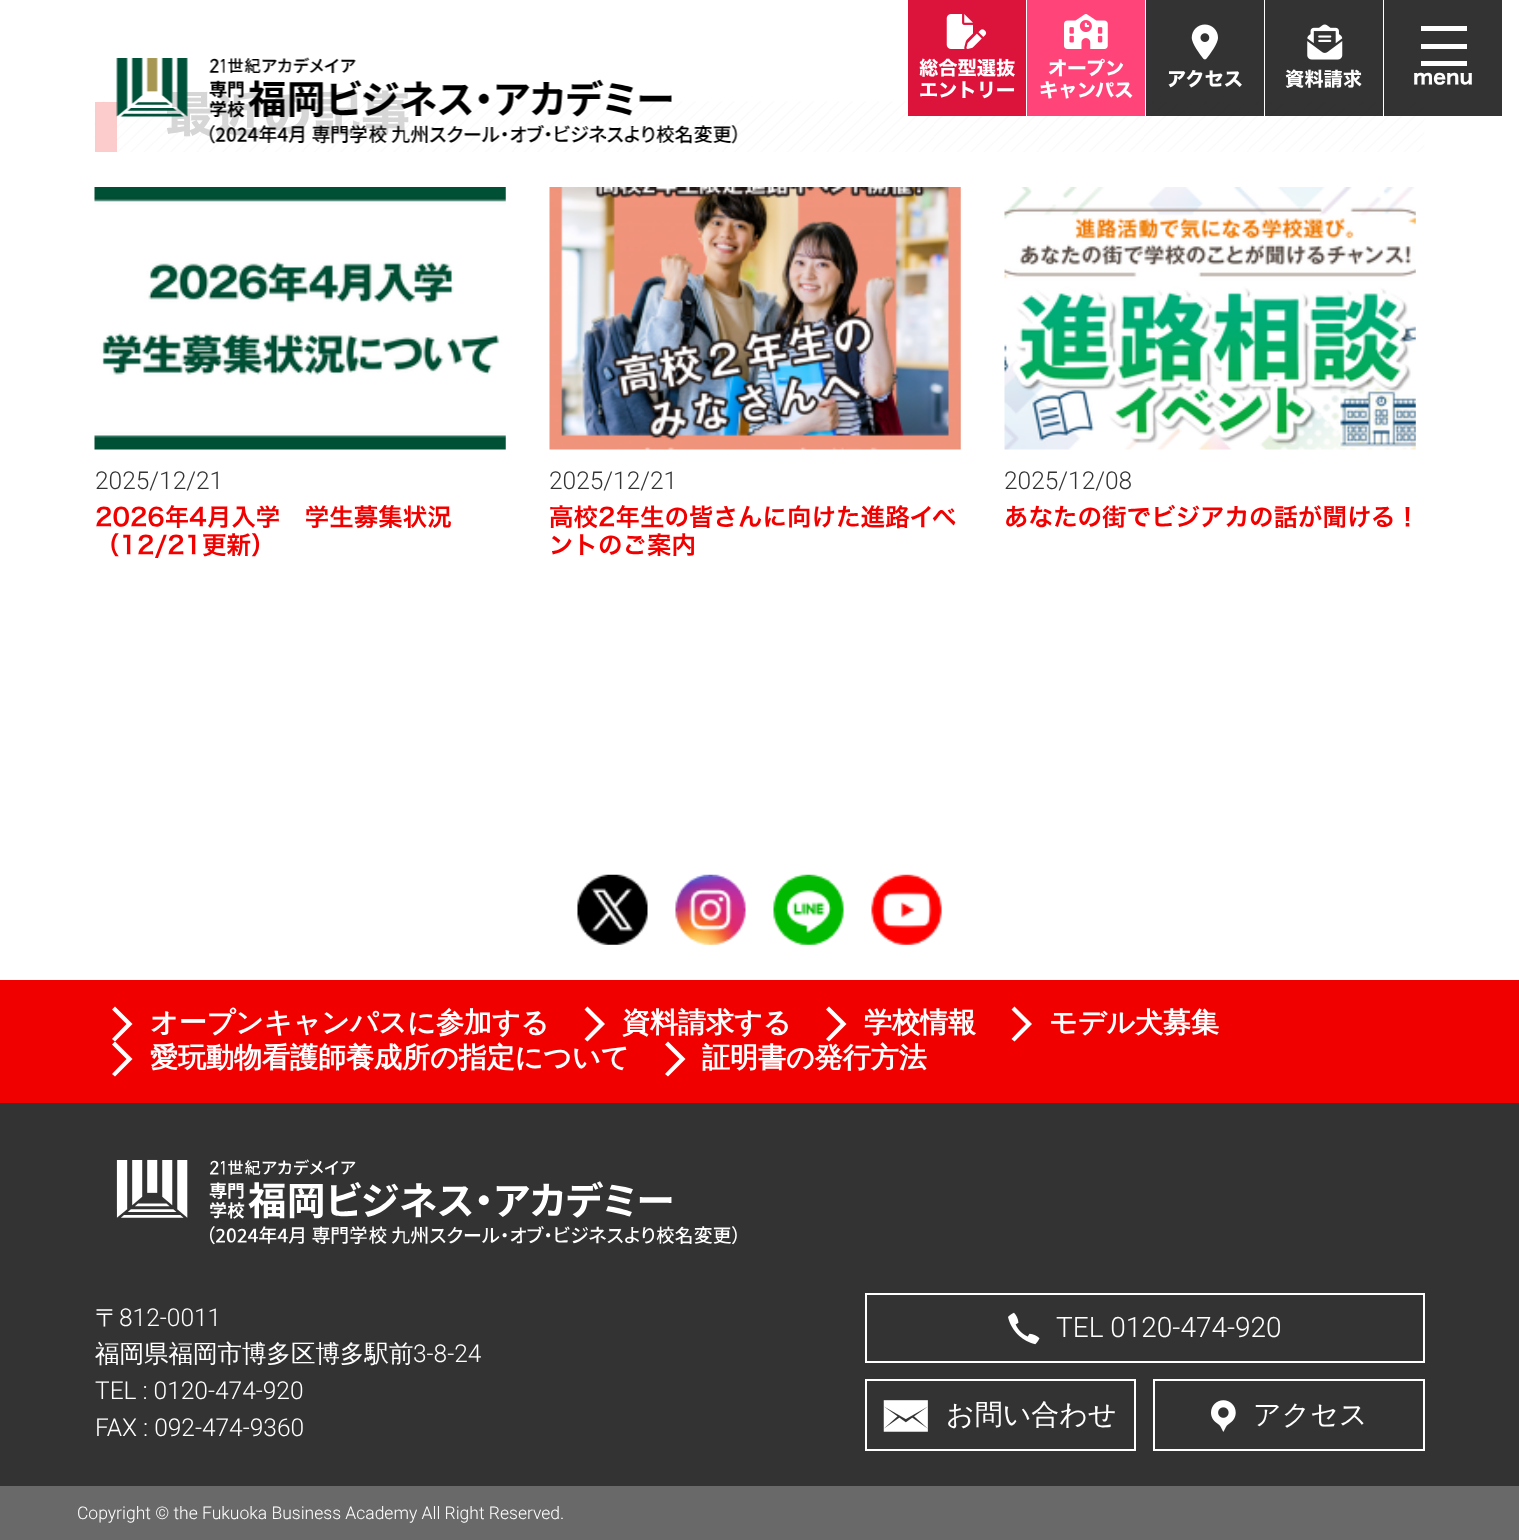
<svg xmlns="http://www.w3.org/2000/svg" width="1519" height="1540">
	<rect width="100%" height="100%" fill="#FFFFFF" />
	<image x="94" y="101" width="1331" height="51" href="assets/img6.png" />
	<text x="165" y="132" font-family="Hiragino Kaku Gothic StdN" font-size="49" font-weight="700" fill="#D6D6D6">最近の記事</text>
	<rect x="95" y="102" width="22" height="50" fill="#FCCCCC" />
	<image x="116" y="57" width="622" height="87" href="assets/img1.png" />
	<rect x="908" y="0" width="118" height="116" fill="#DC143C" />
	<image x="946" y="14" width="41" height="35" href="assets/img2.png" />
	<g font-family="Hiragino Kaku Gothic StdN" font-size="19.25" font-weight="700" fill="#FFFFFF">
		<text x="919" y="75">総合型選抜</text>
		<text x="919" y="97">エントリー</text>
	</g>
	<rect x="1027" y="0" width="118" height="116" fill="#FF4479" />
	<image x="1064" y="14" width="44" height="35" href="assets/img3.png" />
	<g font-family="Hiragino Kaku Gothic StdN" font-size="19.25" font-weight="700" fill="#FFFFFF">
		<text x="1048" y="75">オープン</text>
		<text x="1039" y="97">キャンパス</text>
	</g>
	<rect x="1146" y="0" width="118" height="116" fill="#000000" fill-opacity="0.8" />
	<image x="1191" y="24" width="27" height="36" href="assets/img4.png" />
	<text x="1167" y="86" font-family="Hiragino Kaku Gothic StdN" font-size="19.25" font-weight="700" fill="#FFFFFF">アクセス</text>
	<rect x="1265" y="0" width="118" height="116" fill="#000000" fill-opacity="0.8" />
	<image x="1307" y="24" width="36" height="36" href="assets/img5.png" />
	<text x="1285" y="86" font-family="Hiragino Kaku Gothic StdN" font-size="19.25" font-weight="700" fill="#FFFFFF">資料請求</text>
	<rect x="1384" y="0" width="118" height="116" fill="#000000" fill-opacity="0.8" />
	<rect x="1421" y="26" width="46" height="5" fill="#FFFFFF" />
	<rect x="1421" y="44" width="46" height="5" fill="#FFFFFF" />
	<rect x="1421" y="61" width="46" height="5" fill="#FFFFFF" />
	<text x="1413" y="84" font-family="Hiragino Kaku Gothic StdN" font-size="19.25" font-weight="700" fill="#FFFFFF">menu</text>
	<image x="94" y="187" width="412" height="263" href="assets/img7.png" />
	<text x="95" y="489" font-family="Roboto" font-size="24.5" font-weight="300" fill="#333333">2025/12/21</text>
	<g font-family="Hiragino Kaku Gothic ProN" font-size="24.5" font-weight="600" fill="#F10000">
		<text x="95" y="526">2026年4月入学　学生募集状況</text>
		<text x="95" y="554">（12/21更新）</text>
	</g>
	<image x="549" y="187" width="412" height="263" href="assets/img8.png" />
	<text x="549" y="489" font-family="Roboto" font-size="24.5" font-weight="300" fill="#333333">2025/12/21</text>
	<g font-family="Hiragino Kaku Gothic ProN" font-size="24.5" font-weight="600" fill="#F10000">
		<text x="549" y="526">高校2年生の皆さんに向けた進路イベ</text>
		<text x="549" y="554">ントのご案内</text>
	</g>
	<image x="1004" y="187" width="412" height="263" href="assets/img9.png" />
	<text x="1004" y="489" font-family="Roboto" font-size="24.5" font-weight="300" fill="#333333">2025/12/08</text>
	<text x="1004" y="526" font-family="Hiragino Kaku Gothic ProN" font-size="24.5" font-weight="600" fill="#F10000">あなたの街でビジアカの話が聞ける！</text>
	<image x="577" y="874" width="71" height="71" href="assets/img10.png" />
	<image x="675" y="874" width="71" height="71" href="assets/img11.png" />
	<image x="773" y="874" width="71" height="71" href="assets/img12.png" />
	<image x="871" y="874" width="71" height="71" href="assets/img13.png" />
	<rect x="0" y="980" width="1519" height="123" fill="#F10000" />
	<path d="M115 1041.5L112 1039L126.5 1024L112 1009.5L115 1006.5L132.5 1024Z" fill="#FFFFFF" />
	<text x="150" y="1032" font-family="WenQuanYi Zen Hei" font-size="28" font-weight="700" fill="#FFFFFF">オープンキャンパスに参加する</text>
	<path d="M587.5 1041.5L584.5 1039L599 1024L584.5 1009.5L587.5 1006.5L605 1024Z" fill="#FFFFFF" />
	<text x="622" y="1032" font-family="WenQuanYi Zen Hei" font-size="28" font-weight="700" fill="#FFFFFF">資料請求する</text>
	<path d="M829 1041.5L826 1039L840.5 1024L826 1009.5L829 1006.5L846.5 1024Z" fill="#FFFFFF" />
	<text x="864" y="1032" font-family="WenQuanYi Zen Hei" font-size="28" font-weight="700" fill="#FFFFFF">学校情報</text>
	<path d="M1014.5 1041.5L1011.5 1039L1026 1024L1011.5 1009.5L1014.5 1006.5L1032 1024Z" fill="#FFFFFF" />
	<text x="1049" y="1032" font-family="WenQuanYi Zen Hei" font-size="28" font-weight="700" fill="#FFFFFF">モデル犬募集</text>
	<path d="M115 1076.5L112 1074L126.5 1059L112 1044.5L115 1041.5L132.5 1059Z" fill="#FFFFFF" />
	<text x="150" y="1067" font-family="WenQuanYi Zen Hei" font-size="28" font-weight="700" fill="#FFFFFF">愛玩動物看護師養成所の指定について</text>
	<path d="M668 1076.5L665 1074L679.5 1059L665 1044.5L668 1041.5L685.5 1059Z" fill="#FFFFFF" />
	<text x="702" y="1067" font-family="WenQuanYi Zen Hei" font-size="28" font-weight="700" fill="#FFFFFF">証明書の発行方法</text>
	<rect x="0" y="1103" width="1519" height="383" fill="#333333" />
	<image x="116" y="1159" width="621" height="86" href="assets/img14.png" />
	<text x="95" y="1326" font-family="WenQuanYi Zen Hei" font-size="24.5" font-weight="500" fill="#FFFFFF">〒</text>
	<text x="119" y="1326" font-family="Roboto" font-size="24.5" font-weight="300" fill="#FFFFFF">812-0011</text>
	<text x="95" y="1362" font-family="WenQuanYi Zen Hei" font-size="24.5" font-weight="500" fill="#FFFFFF">福岡県福岡市博多区博多駅前</text>
	<g font-family="Roboto" font-size="24.5" font-weight="300" fill="#FFFFFF">
		<text x="413" y="1362">3-8-24</text>
		<text x="95" y="1399">TEL : 0120-474-920</text>
		<text x="95" y="1436">FAX : 092-474-9360</text>
	</g>
	<rect x="866" y="1294" width="558" height="68" fill="none" stroke="#FFFFFF" stroke-width="2" />
	<image x="1008" y="1312" width="32" height="33" href="assets/img15.png" />
	<text x="1056" y="1337" font-family="Roboto" font-size="28" font-weight="300" fill="#FFFFFF">TEL 0120-474-920</text>
	<rect x="866" y="1380" width="269" height="70" fill="none" stroke="#FFFFFF" stroke-width="2" />
	<image x="883" y="1400" width="45" height="32" href="assets/img16.png" />
	<text x="946" y="1424" font-family="WenQuanYi Zen Hei" font-size="28" font-weight="500" fill="#FFFFFF">お問い合わせ</text>
	<rect x="1154" y="1380" width="270" height="70" fill="none" stroke="#FFFFFF" stroke-width="2" />
	<image x="1211" y="1400" width="25" height="32" href="assets/img17.png" />
	<text x="1253" y="1424" font-family="WenQuanYi Zen Hei" font-size="28" font-weight="500" fill="#FFFFFF">アクセス</text>
	<rect x="0" y="1486" width="1519" height="54" fill="#696969" />
	<text x="77" y="1519" font-family="Roboto" font-size="17.5" font-weight="300" fill="#FFFFFF">Copyright © the Fukuoka Business Academy All Right Reserved.</text>
</svg>
